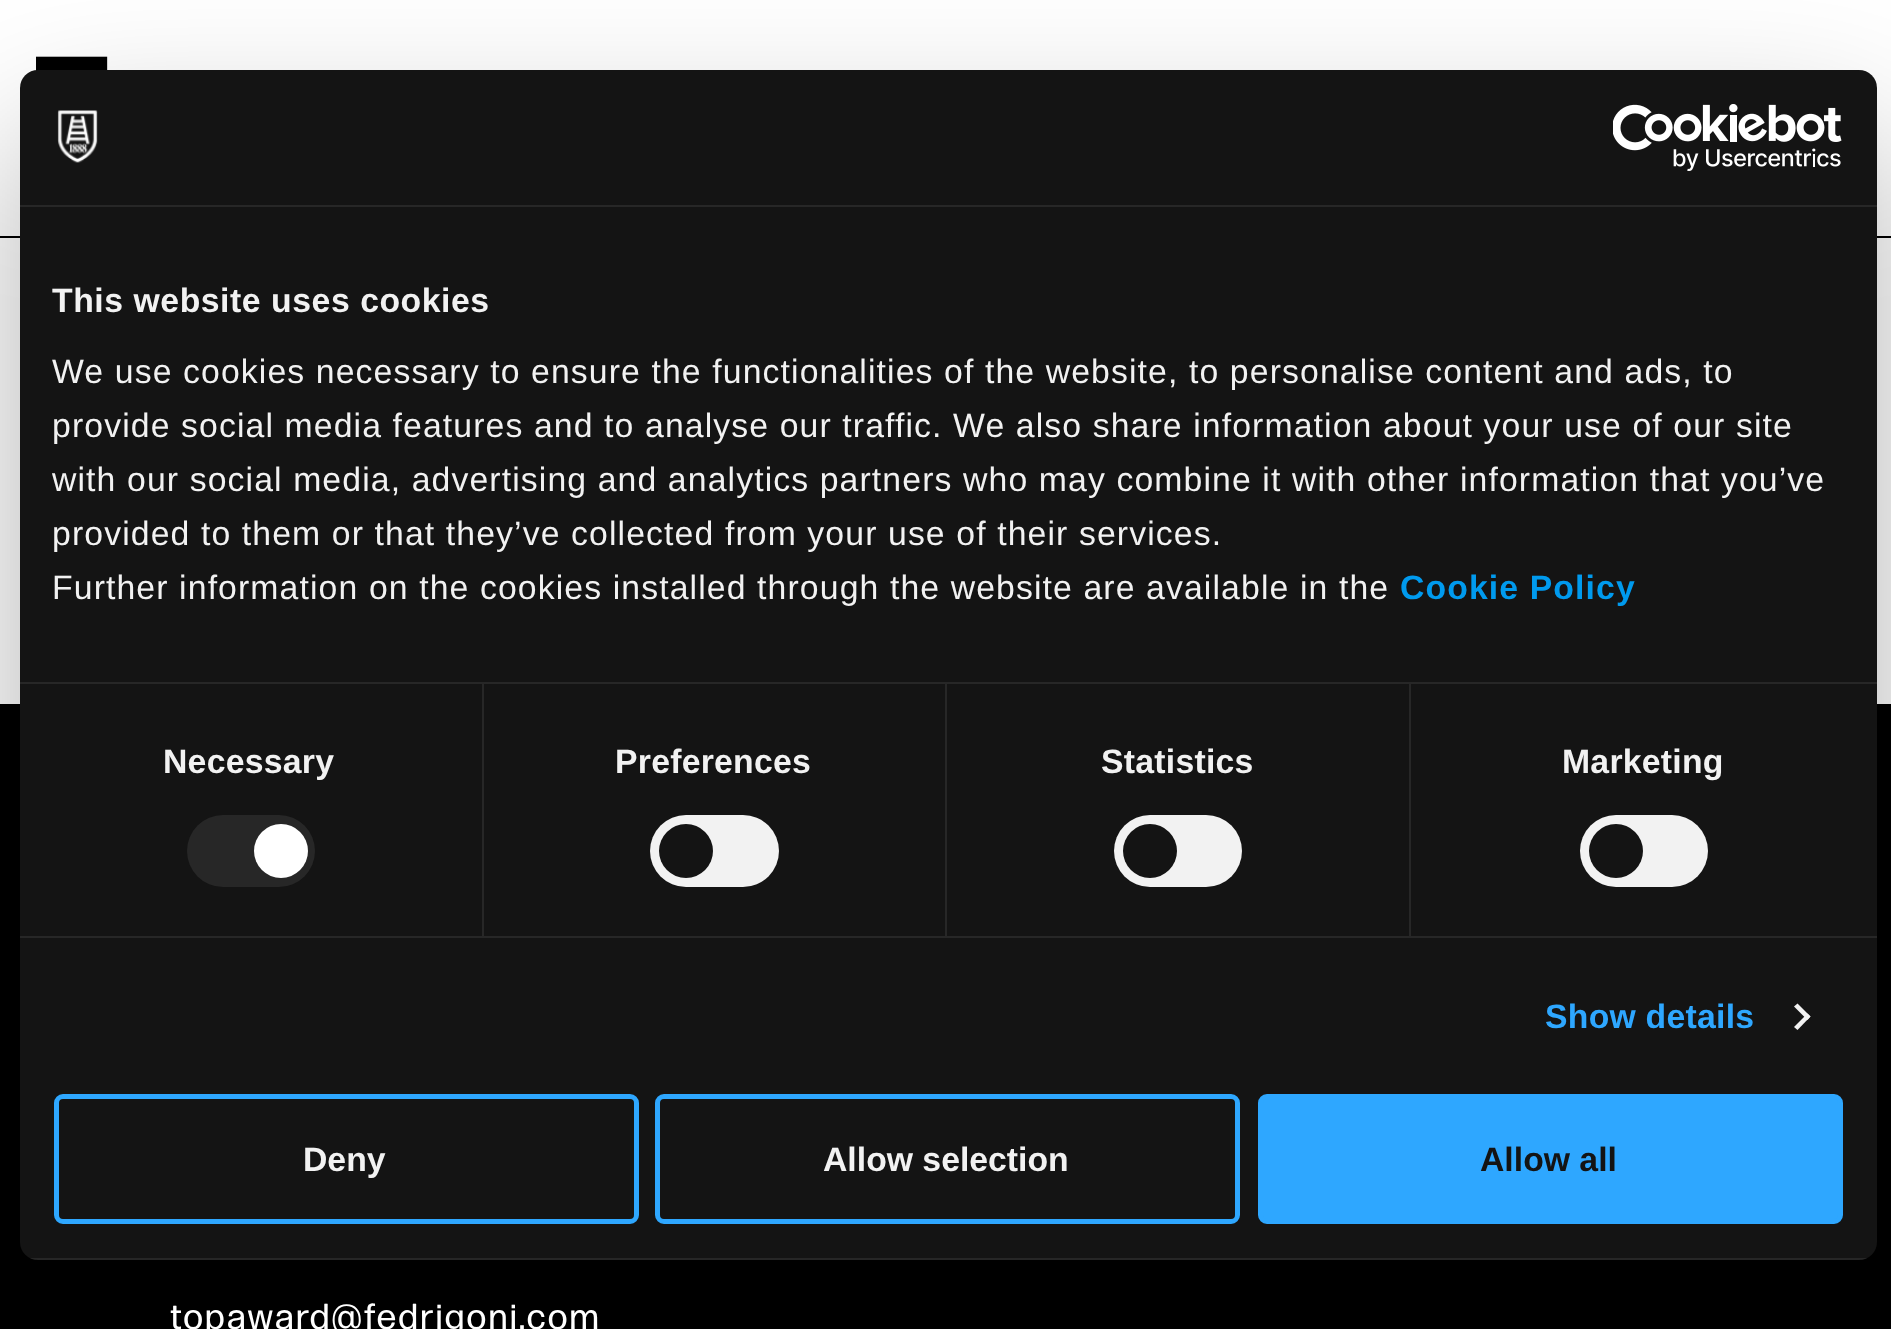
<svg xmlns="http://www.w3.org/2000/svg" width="1891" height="1329">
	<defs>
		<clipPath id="clip1"><rect x="20" y="70" width="1857" height="1190" rx="18" /></clipPath>
	</defs>
	<rect width="100%" height="100%" fill="#FFFFFF" />
	<rect x="0" y="236" width="1891" height="2" fill="#000000" />
	<image x="36" y="56" width="72" height="15" href="assets/img3.png" />
	<rect x="0" y="704" width="1891" height="625" fill="#000000" />
	<rect x="20" y="142" width="1857" height="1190" rx="18" fill="#000000" fill-opacity="0.3" filter="blur(76.5px)" />
	<rect x="20" y="70" width="1857" height="1190" rx="18" fill="#141414" />
	<rect x="20" y="205" width="1857" height="2" fill="#272727" />
	<image x="57" y="110" width="41" height="53" href="assets/img1.png" />
	<image x="1613" y="104" width="229" height="67" href="assets/img2.png" />
	<rect x="20" y="682" width="1857" height="2" fill="#272727" />
	<text x="52" y="312" font-family="Liberation Sans" font-size="33.75" font-weight="700" letter-spacing="0.55" fill="#F2F2F2">This website uses cookies</text>
	<g font-family="Liberation Sans" font-size="33.75" letter-spacing="1.12" fill="#F2F2F2">
		<text x="52" y="383">We use cookies necessary to ensure the functionalities of the website, to personalise content and ads, to</text>
		<text x="52" y="437">provide social media features and to analyse our traffic. We also share information about your use of our site</text>
		<text x="52" y="491">with our social media, advertising and analytics partners who may combine it with other information that you’ve</text>
		<text x="52" y="545">provided to them or that they’ve collected from your use of their services.</text>
		<text x="52" y="599">Further information on the cookies installed through the website are available in the</text>
	</g>
	<text x="1400" y="599" font-family="Liberation Sans" font-size="33.75" font-weight="700" letter-spacing="1.12" fill="#009AEE">Cookie Policy</text>
	<rect x="20" y="936" width="1857" height="2" fill="#272727" />
	<rect x="482" y="684" width="2" height="252" fill="#272727" />
	<text x="163" y="773" font-family="Liberation Sans" font-size="33.75" font-weight="700" letter-spacing="0.25" fill="#F2F2F2">Necessary</text>
	<rect x="187" y="815" width="128" height="72" rx="36" fill="#272727" />
	<circle cx="281" cy="851" r="27" fill="#FFFFFF" />
	<rect x="945" y="684" width="2" height="252" fill="#272727" />
	<text x="615" y="773" font-family="Liberation Sans" font-size="33.75" font-weight="700" letter-spacing="0.25" fill="#F2F2F2">Preferences</text>
	<rect x="650" y="815" width="129" height="72" rx="36" fill="#F2F2F2" />
	<circle cx="686" cy="851" r="27" fill="#141414" />
	<rect x="1409" y="684" width="2" height="252" fill="#272727" />
	<text x="1101" y="773" font-family="Liberation Sans" font-size="33.75" font-weight="700" letter-spacing="0.25" fill="#F2F2F2">Statistics</text>
	<rect x="1114" y="815" width="128" height="72" rx="36" fill="#F2F2F2" />
	<circle cx="1150" cy="851" r="27" fill="#141414" />
	<text x="1562" y="773" font-family="Liberation Sans" font-size="33.75" font-weight="700" letter-spacing="0.25" fill="#F2F2F2">Marketing</text>
	<rect x="1580" y="815" width="128" height="72" rx="36" fill="#F2F2F2" />
	<circle cx="1616" cy="851" r="27" fill="#141414" />
	<text x="1545" y="1028" font-family="Liberation Sans" font-size="33.75" font-weight="700" letter-spacing="0.25" fill="#2EA7FF">Show details</text>
	<path d="M1797.5 1003.5L1810.5 1016.5L1807.5 1020L1794 1006.5Z" fill="#F2F2F2" />
	<path d="M1807.5 1013.5L1810.5 1016.5L1797.5 1030L1794 1027Z" fill="#F2F2F2" />
	<g clip-path="url(#clip1)">
		<rect x="30" y="1258" width="1837" height="2" fill="#FFFFFF" fill-opacity="0.08" />
	</g>
	<rect x="56.5" y="1096.5" width="580" height="125" rx="6.5" fill="none" stroke="#2EA7FF" stroke-width="5" />
	<text x="303" y="1171" font-family="Liberation Sans" font-size="33.75" font-weight="700" fill="#F2F2F2">Deny</text>
	<rect x="657.5" y="1096.5" width="580" height="125" rx="6.5" fill="none" stroke="#2EA7FF" stroke-width="5" />
	<text x="823" y="1171" font-family="Liberation Sans" font-size="33.75" font-weight="700" fill="#F2F2F2">Allow selection</text>
	<rect x="1260.5" y="1096.5" width="580" height="125" rx="6.5" fill="#2EA7FF" stroke="#2EA7FF" stroke-width="5" />
	<text x="1480" y="1171" font-family="Liberation Sans" font-size="33.75" font-weight="700" fill="#141414">Allow all</text>
	<text x="170" y="1329" font-family="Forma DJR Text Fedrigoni" font-size="36" letter-spacing="2.25" fill="#FFFFFF">topaward@fedrigoni.com</text>
</svg>
